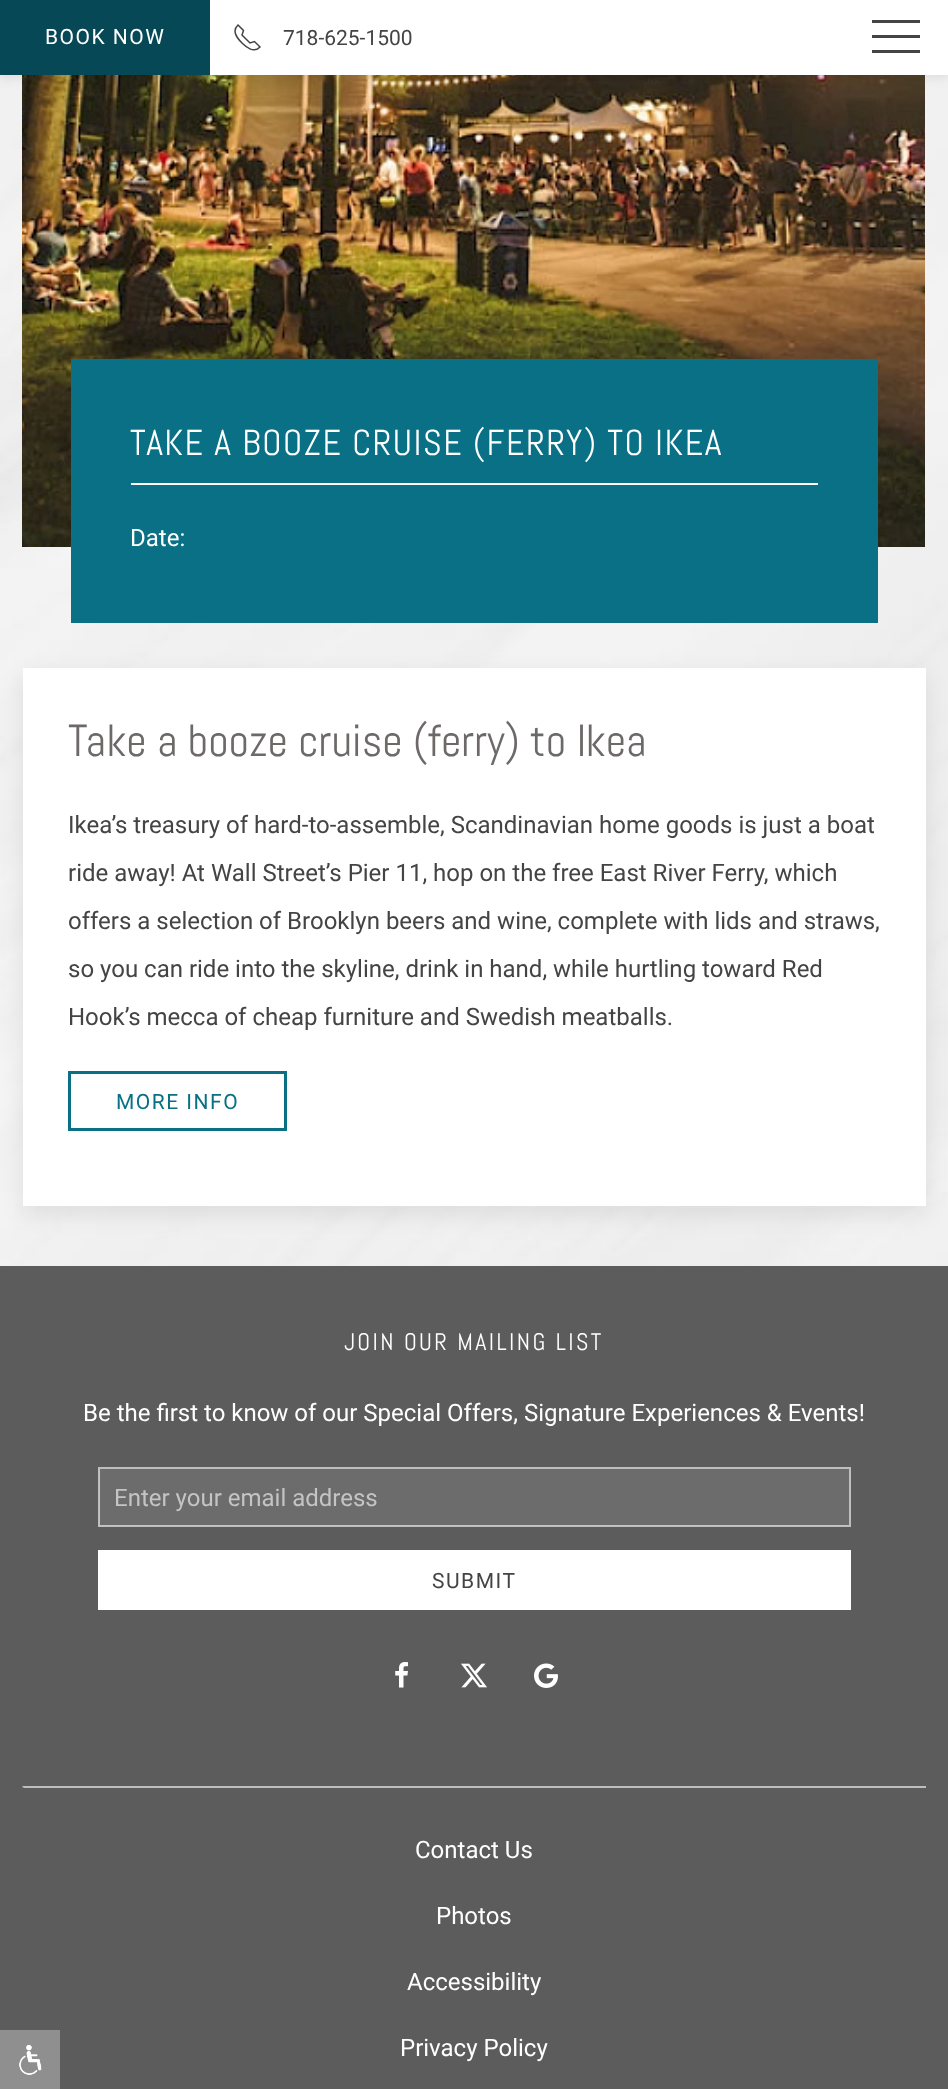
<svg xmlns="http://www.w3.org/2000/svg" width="948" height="2089">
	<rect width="100%" height="100%" fill="#FFFFFF" />
	<rect x="0" y="1266" width="948" height="823" fill="#5C5C5C" />
	<rect x="0" y="2030" width="60" height="59" fill="#8F8F8F" />
	<image x="19" y="2045" width="23" height="30" href="assets/img1.png" />
	<image x="0" y="75" width="948" height="1191" href="assets/img2.png" />
	<image x="22" y="75" width="903" height="472" href="assets/img3.png" />
	<rect x="0" y="3" width="948" height="75" fill="#000000" fill-opacity="0.08" filter="blur(6px)" />
	<rect x="210" y="0" width="738" height="75" fill="#FFFFFF" />
	<rect x="0" y="0" width="210" height="75" fill="#064856" />
	<text x="45" y="44" font-family="Roboto" font-size="21" letter-spacing="1.5" fill="#FFFFFF">BOOK NOW</text>
	<path d="M242 43C246.5 47.5 254 53.5 260 47L254.5 41.5L250 43L242 35L243.5 30.5L238 25C231.5 31 237 38 242 43" fill="none" stroke="#444444" stroke-width="1.5" />
	<text x="283" y="45" font-family="Roboto" font-size="21" fill="#444444">718-625-1500</text>
	<rect x="872" y="20" width="48" height="3" fill="#444444" />
	<rect x="872" y="35" width="48" height="3" fill="#444444" />
	<rect x="872" y="50" width="48" height="3" fill="#444444" />
	<rect x="71" y="359" width="807" height="264" fill="#097086" />
	<rect x="131" y="483" width="687" height="2" fill="#FFFFFF" />
	<text x="130" y="455" font-family="Abel" font-size="36" letter-spacing="1.5" fill="#FFFFFF">TAKE A BOOZE CRUISE (FERRY) TO IKEA</text>
	<text x="130" y="546" font-family="Roboto" font-size="24" fill="#FFFFFF">Date:</text>
	<rect x="23" y="675" width="903" height="539" fill="#000000" fill-opacity="0.08" filter="blur(11px)" />
	<rect x="23" y="668" width="903" height="538" fill="#FFFFFF" />
	<text x="68" y="756" font-family="Abel" font-size="44.9" fill="#6D6969">Take a booze cruise (ferry) to Ikea</text>
	<g font-family="Roboto" font-size="24" fill="#444444">
		<text x="68" y="833">Ikea’s treasury of hard-to-assemble, Scandinavian home goods is just a boat</text>
		<text x="68" y="881">ride away! At Wall Street’s Pier 11, hop on the free East River Ferry, which</text>
		<text x="68" y="929">offers a selection of Brooklyn beers and wine, complete with lids and straws,</text>
		<text x="68" y="977">so you can ride into the skyline, drink in hand, while hurtling toward Red</text>
		<text x="68" y="1025">Hook’s mecca of cheap furniture and Swedish meatballs.</text>
	</g>
	<rect x="69.5" y="1072.5" width="216" height="57" fill="none" stroke="#097086" stroke-width="3" />
	<text x="116" y="1109" font-family="Roboto" font-size="21" letter-spacing="1.5" fill="#097086">MORE INFO</text>
	<text x="344" y="1350" font-family="Abel" font-size="24" letter-spacing="2.4" fill="#FFFFFF">JOIN OUR MAILING LIST</text>
	<text x="83" y="1421" font-family="Roboto" font-size="24" fill="#FFFFFF">Be the first to know of our Special Offers, Signature Experiences &amp; Events!</text>
	<rect x="99" y="1469" width="750" height="57" fill="#6C6C6C" />
	<rect x="99" y="1468" width="751" height="58" fill="none" stroke="#FFFFFF" stroke-opacity="0.6" stroke-width="2" />
	<text x="114" y="1506" font-family="Roboto" font-size="24" fill="#C4C4C4">Enter your email address</text>
	<rect x="98" y="1550" width="753" height="60" fill="#FFFFFF" />
	<text x="432" y="1588" font-family="Roboto" font-size="21" letter-spacing="1.5" fill="#444444">SUBMIT</text>
	<image x="395" y="1662" width="13" height="26" href="assets/img4.png" />
	<image x="461" y="1663" width="26" height="25" href="assets/img5.png" />
	<image x="534" y="1663" width="24" height="25" href="assets/img6.png" />
	<path d="M22 1786H926V1788H24Z" fill="#BEBEBE" />
	<path d="M22.5 1788V1786.5L24 1788Z" fill="#B6B6B6" fill-opacity="0.53" />
	<g font-family="Roboto" font-size="24" fill="#FFFFFF">
		<text x="415" y="1858">Contact Us</text>
		<text x="436" y="1924">Photos</text>
		<text x="407" y="1990">Accessibility</text>
		<text x="400" y="2056">Privacy Policy</text>
	</g>
</svg>
